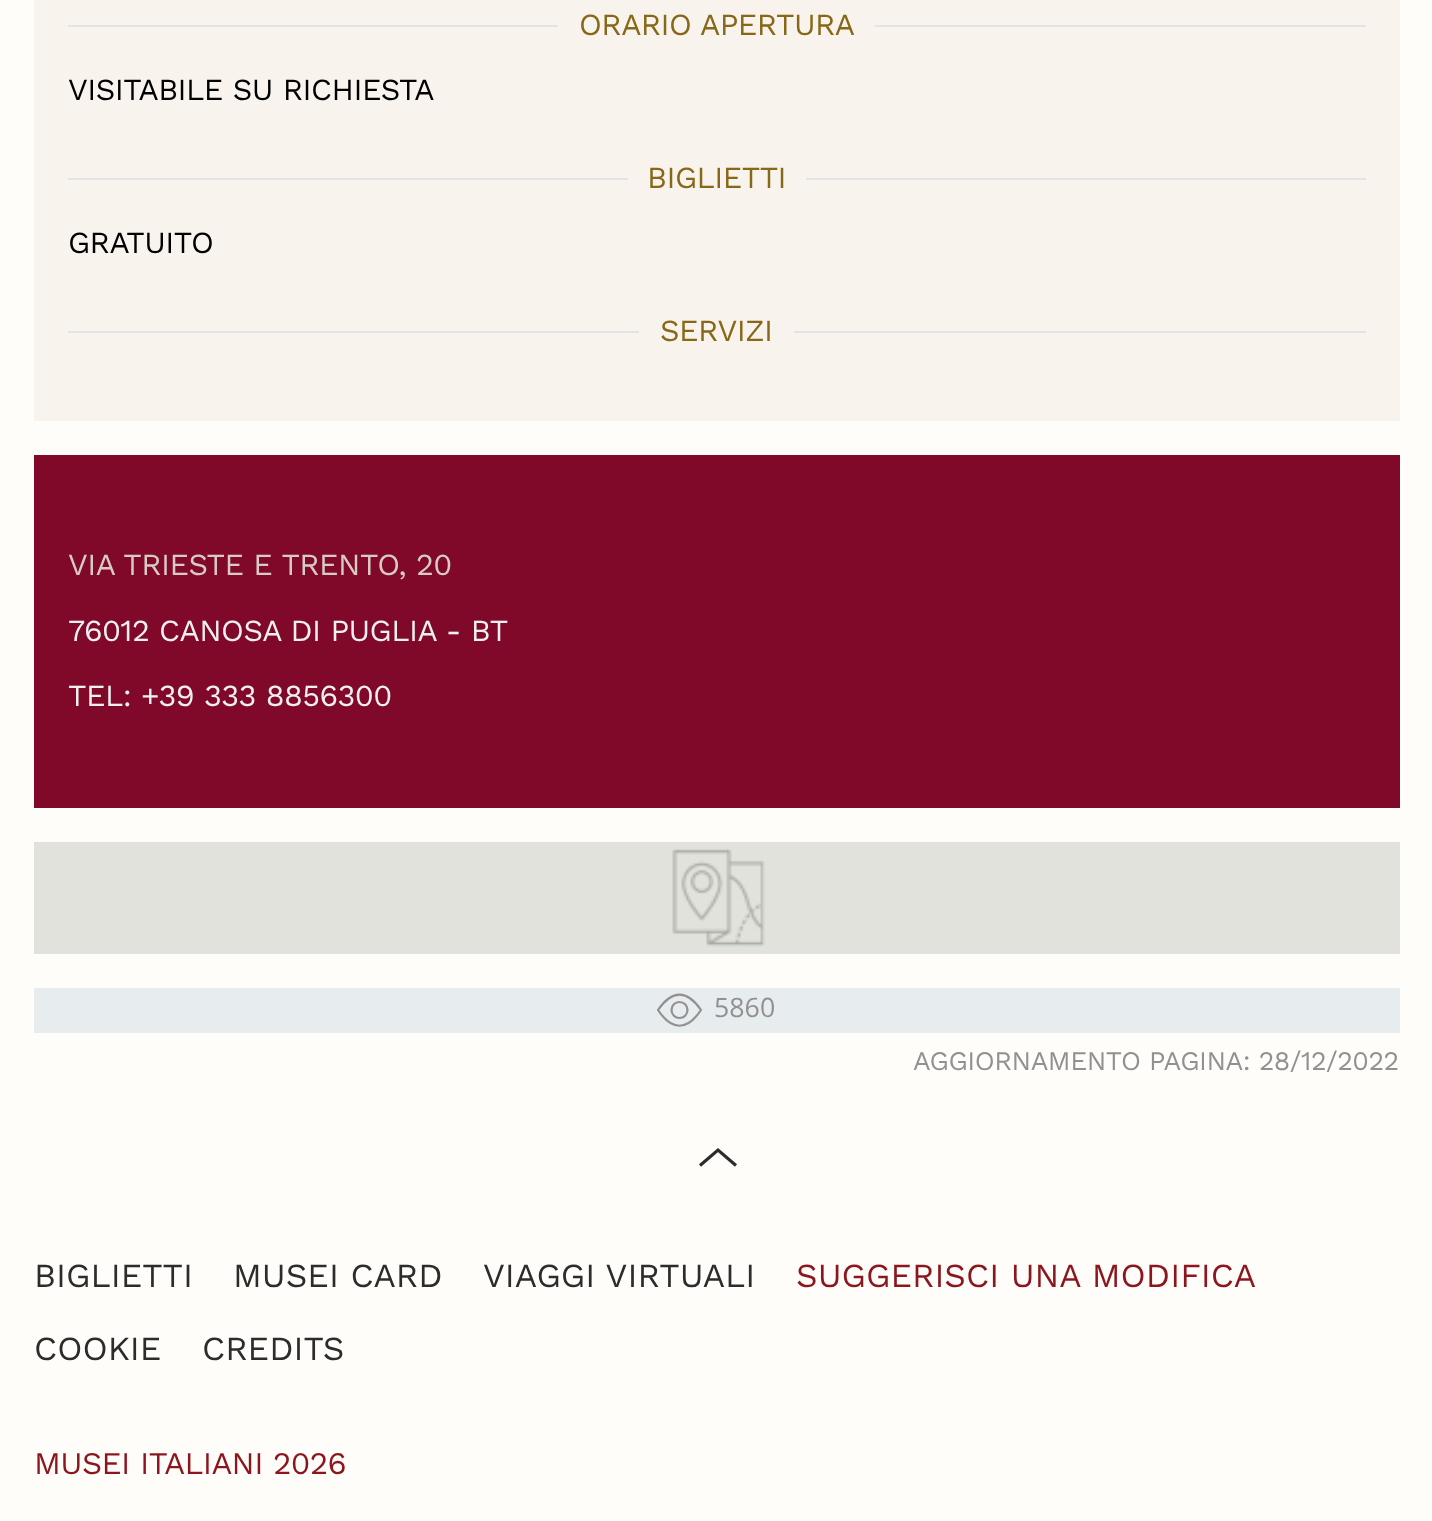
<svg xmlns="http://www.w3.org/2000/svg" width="1432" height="1521">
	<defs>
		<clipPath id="clip1"><rect x="657" y="988" width="45" height="45" /></clipPath>
	</defs>
	<rect width="100%" height="100%" fill="#FFFDFA" />
	<rect x="34" y="0" width="1366" height="421" fill="#F8F4ED" />
	<rect x="68" y="25" width="490" height="2" fill="#E3E3E3" />
	<text x="579" y="35" font-family="Work Sans" font-size="30.6" letter-spacing="-0.55" fill="#876819">ORARIO APERTURA</text>
	<rect x="875" y="25" width="491" height="2" fill="#E3E3E3" />
	<text x="68" y="100" font-family="Work Sans" font-size="30.6" letter-spacing="-0.55" fill="#000000">VISITABILE SU RICHIESTA</text>
	<rect x="68" y="178" width="560" height="2" fill="#E3E3E3" />
	<text x="647" y="188" font-family="Work Sans" font-size="30.6" letter-spacing="-0.55" fill="#876819">BIGLIETTI</text>
	<rect x="806" y="178" width="560" height="2" fill="#E3E3E3" />
	<text x="68" y="253" font-family="Work Sans" font-size="30.6" letter-spacing="-0.55" fill="#000000">GRATUITO</text>
	<rect x="68" y="331" width="571" height="2" fill="#E3E3E3" />
	<text x="660" y="341" font-family="Work Sans" font-size="30.6" letter-spacing="-0.55" fill="#876819">SERVIZI</text>
	<rect x="794" y="331" width="572" height="2" fill="#E3E3E3" />
	<rect x="34" y="455" width="1366" height="353" fill="#800829" />
	<text x="68" y="575" font-family="Work Sans" font-size="30.6" letter-spacing="-0.55" fill="#D6CCC2">VIA TRIESTE E TRENTO, 20</text>
	<g font-family="Work Sans" font-size="30.6" letter-spacing="-0.55" fill="#F0F0F0">
		<text x="68" y="641">76012 CANOSA DI PUGLIA - BT</text>
		<text x="68" y="706">TEL: +39 333 8856300</text>
	</g>
	<rect x="34" y="842" width="1366" height="112" fill="#E0E2DB" />
	<image x="672" y="849" width="93" height="98" href="assets/img1.png" />
	<rect x="34" y="988" width="1366" height="45" fill="#E7ECEF" />
	<circle cx="679.5" cy="1010" r="8" fill="none" stroke="#939091" stroke-width="2.2" />
	<g clip-path="url(#clip1)">
		<path d="M701 1010C687 1031 672 1031 658 1010C672 989.5 687 989.5 701 1010Z" fill="none" stroke="#939091" stroke-width="2.2" />
	</g>
	<text x="714" y="1017" font-family="Open Sans" font-size="26.75" fill="#939091">5860</text>
	<text x="913" y="1070" font-family="Work Sans" font-size="26.75" letter-spacing="-0.5" fill="#939091">AGGIORNAMENTO PAGINA: 28/12/2022</text>
	<path d="M700 1165.5L718 1150L736 1165.5" fill="none" stroke="#2C2C2C" stroke-width="3.1" />
	<g font-family="Work Sans" font-size="33.75" fill="#2C2C2C">
		<text x="34" y="1287">BIGLIETTI</text>
		<text x="233" y="1287">MUSEI CARD</text>
		<text x="483" y="1287">VIAGGI VIRTUALI</text>
	</g>
	<text x="796" y="1287" font-family="Work Sans" font-size="33.75" fill="#8C161E">SUGGERISCI UNA MODIFICA</text>
	<g font-family="Work Sans" font-size="33.75" fill="#2C2C2C">
		<text x="34" y="1360">COOKIE</text>
		<text x="202" y="1360">CREDITS</text>
	</g>
	<text x="34" y="1474" font-family="Work Sans" font-size="31.5" letter-spacing="-0.6" fill="#8C161E">MUSEI ITALIANI 2026</text>
</svg>
